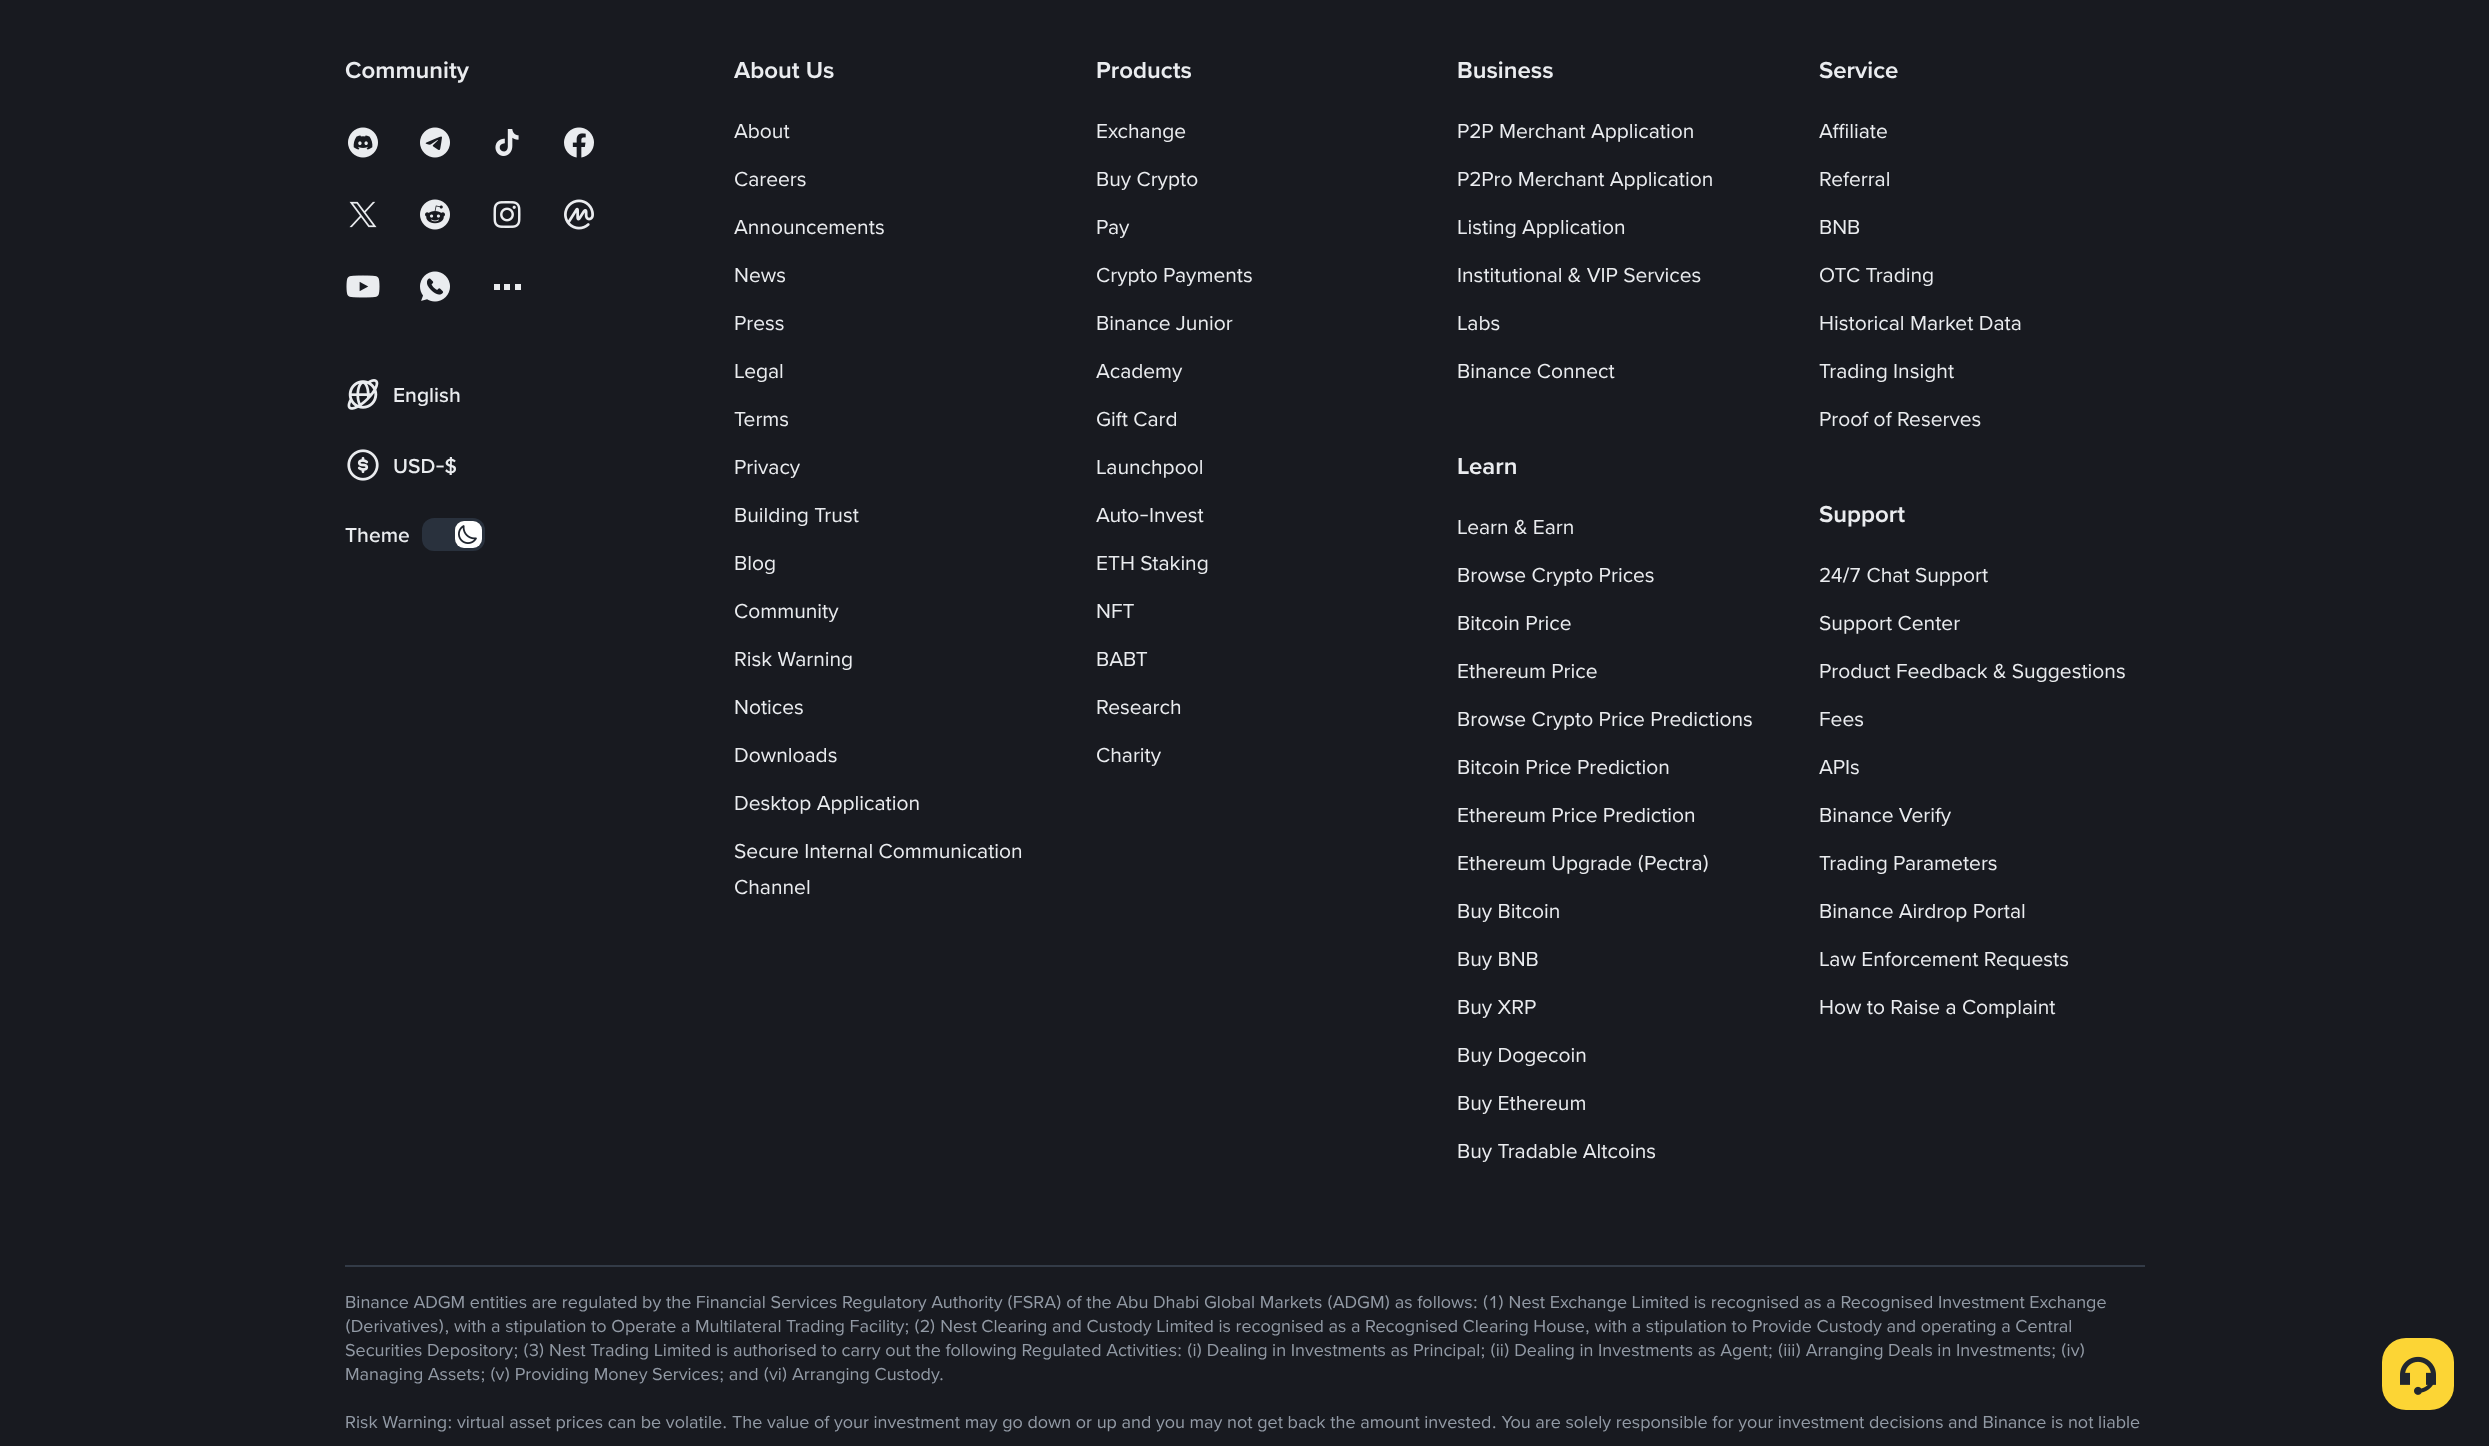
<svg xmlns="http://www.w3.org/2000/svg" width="2489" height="1446">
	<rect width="100%" height="100%" fill="#181A20" />
	<text x="345" y="78" font-family="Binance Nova" font-size="24" font-weight="600" fill="#EAECEF">Community</text>
	<image x="348" y="127" width="30" height="31" href="assets/img1.png" />
	<image x="420" y="127" width="30" height="31" href="assets/img2.png" />
	<image x="495" y="129" width="24" height="27" href="assets/img3.png" />
	<image x="564" y="127" width="30" height="31" href="assets/img4.png" />
	<image x="349" y="201" width="28" height="27" href="assets/img5.png" />
	<image x="420" y="199" width="30" height="31" href="assets/img6.png" />
	<image x="493" y="201" width="28" height="27" href="assets/img7.png" />
	<image x="564" y="199" width="30" height="31" href="assets/img8.png" />
	<image x="346" y="275" width="34" height="23" href="assets/img9.png" />
	<image x="420" y="271" width="30" height="31" href="assets/img10.png" />
	<rect x="504" y="284" width="6" height="6" fill="#EAECEF" />
	<rect x="515" y="284" width="6" height="6" fill="#EAECEF" />
	<rect x="494" y="284" width="6" height="6" fill="#EAECEF" />
	<image x="347" y="379" width="32" height="31" href="assets/img11.png" />
	<text x="393" y="402" font-family="Binance Nova" font-size="21" font-weight="500" fill="#EAECEF">English</text>
	<image x="347" y="449" width="32" height="32" href="assets/img12.png" />
	<g font-family="Binance Nova" font-size="21" font-weight="500" fill="#EAECEF">
		<text x="393" y="473">USD-$</text>
		<text x="345" y="542">Theme</text>
	</g>
	<rect x="422" y="518" width="63" height="33" rx="12" fill="#29313D" />
	<rect x="455" y="521" width="27" height="27" rx="9" fill="#FFFFFF" />
	<image x="458" y="525" width="19" height="19" href="assets/img13.png" />
	<text x="734" y="78" font-family="Binance Nova" font-size="24" font-weight="600" fill="#EAECEF">About Us</text>
	<g font-family="Binance Nova" font-size="21" fill="#EAECEF">
		<text x="734" y="138">About</text>
		<text x="734" y="186">Careers</text>
		<text x="734" y="234">Announcements</text>
		<text x="734" y="282">News</text>
		<text x="734" y="330">Press</text>
		<text x="734" y="378">Legal</text>
		<text x="734" y="426">Terms</text>
		<text x="734" y="474">Privacy</text>
		<text x="734" y="522">Building Trust</text>
		<text x="734" y="570">Blog</text>
		<text x="734" y="618">Community</text>
		<text x="734" y="666">Risk Warning</text>
		<text x="734" y="714">Notices</text>
		<text x="734" y="762">Downloads</text>
		<text x="734" y="810">Desktop Application</text>
		<text x="734" y="858">Secure Internal Communication</text>
		<text x="734" y="894">Channel</text>
	</g>
	<text x="1096" y="78" font-family="Binance Nova" font-size="24" font-weight="600" fill="#EAECEF">Products</text>
	<g font-family="Binance Nova" font-size="21" fill="#EAECEF">
		<text x="1096" y="138">Exchange</text>
		<text x="1096" y="186">Buy Crypto</text>
		<text x="1096" y="234">Pay</text>
		<text x="1096" y="282">Crypto Payments</text>
		<text x="1096" y="330">Binance Junior</text>
		<text x="1096" y="378">Academy</text>
		<text x="1096" y="426">Gift Card</text>
		<text x="1096" y="474">Launchpool</text>
		<text x="1096" y="522">Auto-Invest</text>
		<text x="1096" y="570">ETH Staking</text>
		<text x="1096" y="618">NFT</text>
		<text x="1096" y="666">BABT</text>
		<text x="1096" y="714">Research</text>
		<text x="1096" y="762">Charity</text>
	</g>
	<text x="1457" y="78" font-family="Binance Nova" font-size="24" font-weight="600" fill="#EAECEF">Business</text>
	<g font-family="Binance Nova" font-size="21" fill="#EAECEF">
		<text x="1457" y="138">P2P Merchant Application</text>
		<text x="1457" y="186">P2Pro Merchant Application</text>
		<text x="1457" y="234">Listing Application</text>
		<text x="1457" y="282">Institutional &amp; VIP Services</text>
		<text x="1457" y="330">Labs</text>
		<text x="1457" y="378">Binance Connect</text>
	</g>
	<text x="1457" y="474" font-family="Binance Nova" font-size="24" font-weight="600" fill="#EAECEF">Learn</text>
	<g font-family="Binance Nova" font-size="21" fill="#EAECEF">
		<text x="1457" y="534">Learn &amp; Earn</text>
		<text x="1457" y="582">Browse Crypto Prices</text>
		<text x="1457" y="630">Bitcoin Price</text>
		<text x="1457" y="678">Ethereum Price</text>
		<text x="1457" y="726">Browse Crypto Price Predictions</text>
		<text x="1457" y="774">Bitcoin Price Prediction</text>
		<text x="1457" y="822">Ethereum Price Prediction</text>
		<text x="1457" y="870">Ethereum Upgrade (Pectra)</text>
		<text x="1457" y="918">Buy Bitcoin</text>
		<text x="1457" y="966">Buy BNB</text>
		<text x="1457" y="1014">Buy XRP</text>
		<text x="1457" y="1062">Buy Dogecoin</text>
		<text x="1457" y="1110">Buy Ethereum</text>
		<text x="1457" y="1158">Buy Tradable Altcoins</text>
	</g>
	<text x="1819" y="78" font-family="Binance Nova" font-size="24" font-weight="600" fill="#EAECEF">Service</text>
	<g font-family="Binance Nova" font-size="21" fill="#EAECEF">
		<text x="1819" y="138">Affiliate</text>
		<text x="1819" y="186">Referral</text>
		<text x="1819" y="234">BNB</text>
		<text x="1819" y="282">OTC Trading</text>
		<text x="1819" y="330">Historical Market Data</text>
		<text x="1819" y="378">Trading Insight</text>
		<text x="1819" y="426">Proof of Reserves</text>
	</g>
	<text x="1819" y="522" font-family="Binance Nova" font-size="24" font-weight="600" fill="#EAECEF">Support</text>
	<g font-family="Binance Nova" font-size="21" fill="#EAECEF">
		<text x="1819" y="582">24/7 Chat Support</text>
		<text x="1819" y="630">Support Center</text>
		<text x="1819" y="678">Product Feedback &amp; Suggestions</text>
		<text x="1819" y="726">Fees</text>
		<text x="1819" y="774">APIs</text>
		<text x="1819" y="822">Binance Verify</text>
		<text x="1819" y="870">Trading Parameters</text>
		<text x="1819" y="918">Binance Airdrop Portal</text>
		<text x="1819" y="966">Law Enforcement Requests</text>
		<text x="1819" y="1014">How to Raise a Complaint</text>
	</g>
	<rect x="345" y="1265" width="1800" height="2" fill="#333B47" />
	<g font-family="Binance Nova" font-size="18" fill="#929AA5">
		<text x="345" y="1308">Binance ADGM entities are regulated by the Financial Services Regulatory Authority (FSRA) of the Abu Dhabi Global Markets (ADGM) as follows: (1) Nest Exchange Limited is recognised as a Recognised Investment Exchange</text>
		<text x="345" y="1332">(Derivatives), with a stipulation to Operate a Multilateral Trading Facility; (2) Nest Clearing and Custody Limited is recognised as a Recognised Clearing House, with a stipulation to Provide Custody and operating a Central</text>
		<text x="345" y="1356">Securities Depository; (3) Nest Trading Limited is authorised to carry out the following Regulated Activities: (i) Dealing in Investments as Principal; (ii) Dealing in Investments as Agent; (iii) Arranging Deals in Investments; (iv)</text>
		<text x="345" y="1380">Managing Assets; (v) Providing Money Services; and (vi) Arranging Custody.</text>
		<text x="345" y="1428">Risk Warning: virtual asset prices can be volatile. The value of your investment may go down or up and you may not get back the amount invested. You are solely responsible for your investment decisions and Binance is not liable</text>
	</g>
	<rect x="2382" y="1338" width="72" height="72" rx="24" fill="#FCD535" />
	<image x="2400" y="1356" width="36" height="39" href="assets/img14.png" />
</svg>
